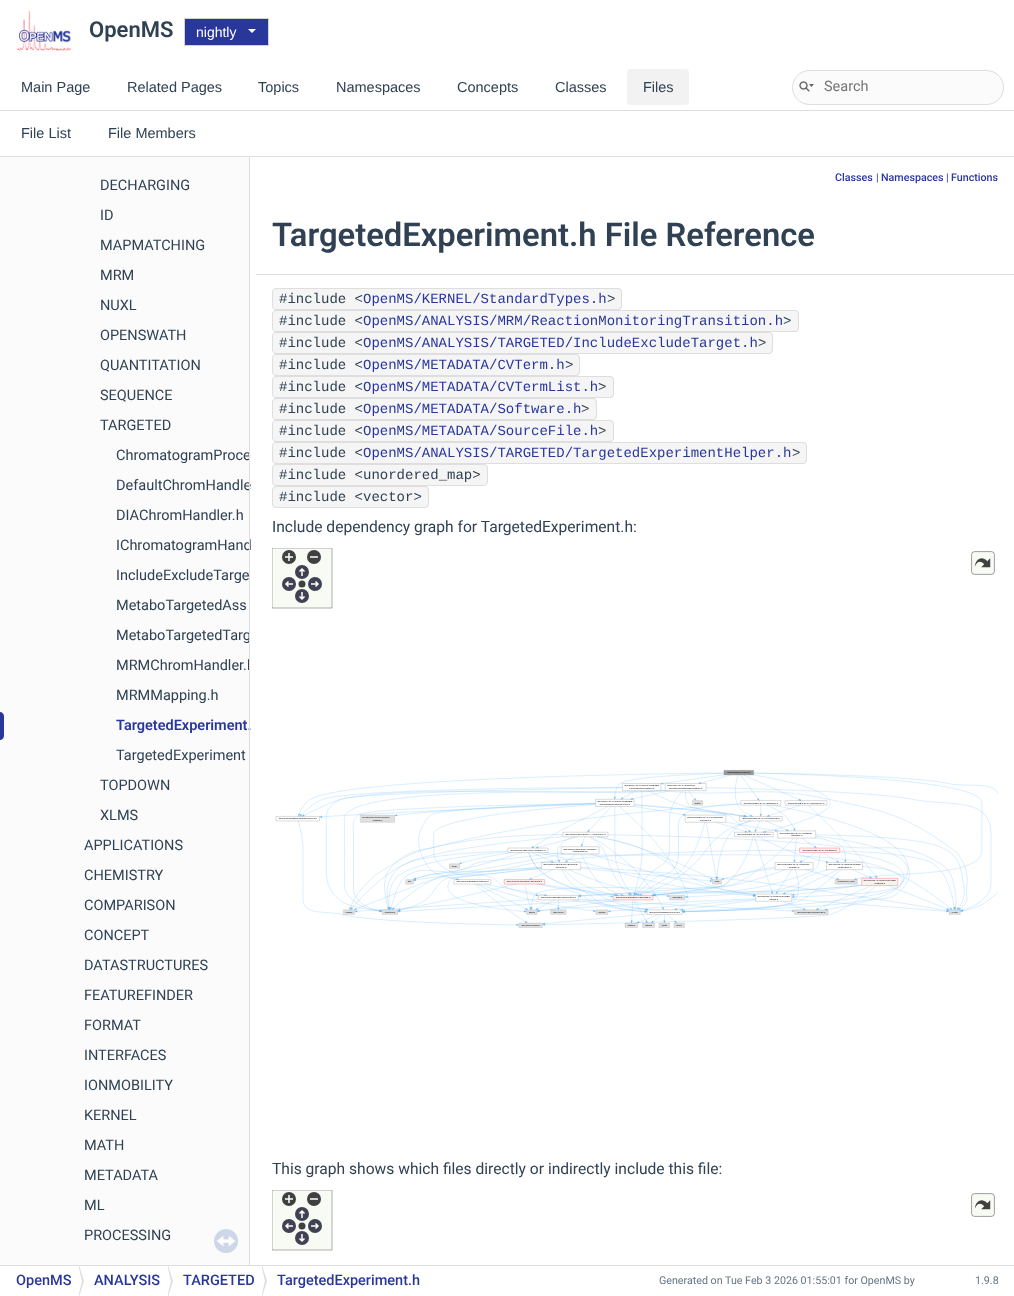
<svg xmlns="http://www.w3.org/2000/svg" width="1014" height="1296">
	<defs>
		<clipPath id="clip1"><rect x="0" y="157" width="250" height="1108" /></clipPath>
		<clipPath id="clip2"><rect x="0" y="1266" width="1014" height="30" /></clipPath>
	</defs>
	<rect width="100%" height="100%" fill="#FFFFFF" />
	<rect x="0" y="156" width="1014" height="1" fill="#DEDEDE" />
	<image x="17" y="10" width="55" height="41" href="assets/img1.png" />
	<text x="89" y="37" font-family="Roboto" font-size="22" font-weight="600" fill="#2F4153">OpenMS</text>
	<rect x="184.5" y="18.5" width="84" height="27" fill="#29379B" stroke="#D3D3D3" />
	<text x="196" y="37" font-family="Liberation Sans" font-size="14" fill="#FFFFFF">nightly</text>
	<path d="M248 29H256L252 33Z" fill="#FFFFFF" />
	<rect x="0" y="110" width="1014" height="1" fill="#DEDEDE" />
	<g font-family="Liberation Sans" font-size="14.5" fill="#2F4153">
		<text x="21" y="92">Main Page</text>
		<text x="127" y="92">Related Pages</text>
		<text x="258" y="92">Topics</text>
		<text x="336" y="92">Namespaces</text>
		<text x="457" y="92">Concepts</text>
		<text x="555" y="92">Classes</text>
	</g>
	<rect x="627" y="69" width="62" height="36" rx="4" fill="#F2F2F2" />
	<text x="643" y="92" font-family="Liberation Sans" font-size="14.5" fill="#2F4153">Files</text>
	<rect x="792.5" y="70.5" width="211" height="34" rx="17" fill="#FBFBFB" stroke="#DEDEDE" />
	<image x="799" y="81" width="15" height="11" href="assets/img2.png" />
	<text x="824" y="91" font-family="Roboto" font-size="14.5" fill="#757575">Search</text>
	<g font-family="Liberation Sans" font-size="14.5" fill="#2F4153">
		<text x="21" y="138">File List</text>
		<text x="108" y="138">File Members</text>
	</g>
	<rect x="0" y="157" width="249" height="1108" fill="#FBFBFB" />
	<g font-family="Roboto" font-size="14.5" fill="#2F4153">
		<text x="116" y="460">ChromatogramProce</text>
		<text x="116" y="490">DefaultChromHandle</text>
		<text x="116" y="550">IChromatogramHand</text>
		<text x="116" y="640">MetaboTargetedTarg</text>
	</g>
	<g clip-path="url(#clip1)">
		<text x="116" y="670" font-family="Roboto" font-size="14.5" fill="#2F4153">MRMChromHandler.h</text>
	</g>
	<text x="116" y="730" font-family="Roboto" font-size="14.5" font-weight="600" fill="#29379B">TargetedExperiment.</text>
	<rect x="249" y="157" width="1" height="1108" fill="#DEDEDE" />
	<g font-family="Roboto" font-size="14.5" fill="#2F4153">
		<text x="100" y="190">DECHARGING</text>
		<text x="100" y="220">ID</text>
		<text x="100" y="250">MAPMATCHING</text>
		<text x="100" y="280">MRM</text>
		<text x="100" y="310">NUXL</text>
		<text x="100" y="340">OPENSWATH</text>
		<text x="100" y="370">QUANTITATION</text>
		<text x="100" y="400">SEQUENCE</text>
		<text x="100" y="430">TARGETED</text>
		<text x="116" y="520">DIAChromHandler.h</text>
		<text x="116" y="580">IncludeExcludeTarge</text>
		<text x="116" y="610">MetaboTargetedAss</text>
		<text x="116" y="700">MRMMapping.h</text>
	</g>
	<path d="M0 712C2 712 4 714 4 716V736C4 738 2 740 0 740Z" fill="#29379B" />
	<g font-family="Roboto" font-size="14.5" fill="#2F4153">
		<text x="116" y="760">TargetedExperiment</text>
		<text x="100" y="790">TOPDOWN</text>
		<text x="100" y="820">XLMS</text>
		<text x="84" y="850">APPLICATIONS</text>
		<text x="84" y="880">CHEMISTRY</text>
		<text x="84" y="910">COMPARISON</text>
		<text x="84" y="940">CONCEPT</text>
		<text x="84" y="970">DATASTRUCTURES</text>
		<text x="84" y="1000">FEATUREFINDER</text>
		<text x="84" y="1030">FORMAT</text>
		<text x="84" y="1060">INTERFACES</text>
		<text x="84" y="1090">IONMOBILITY</text>
		<text x="84" y="1120">KERNEL</text>
		<text x="84" y="1150">MATH</text>
		<text x="84" y="1180">METADATA</text>
		<text x="84" y="1210">ML</text>
		<text x="84" y="1240">PROCESSING</text>
	</g>
	<image x="214" y="1229" width="24" height="24" href="assets/img3.png" />
	<rect x="256" y="274" width="758" height="1" fill="#DEDEDE" />
	<text x="835" y="181" font-family="Roboto" font-size="10.7" font-weight="500" fill="#29379B">Classes</text>
	<text x="876" y="181" font-family="Roboto" font-size="10.7" fill="#2F4153">|</text>
	<text x="881" y="181" font-family="Roboto" font-size="10.7" font-weight="500" fill="#29379B">Namespaces</text>
	<text x="946" y="181" font-family="Roboto" font-size="10.7" fill="#2F4153">|</text>
	<text x="951" y="181" font-family="Roboto" font-size="10.7" font-weight="500" fill="#29379B">Functions</text>
	<text x="272" y="246" font-family="Roboto" font-size="32.75" font-weight="600" fill="#2F4153">TargetedExperiment.h File Reference</text>
	<path d="M276 288H363V310H276C274 310 272 308 272 306V292C272 290 274 288 276 288Z" fill="#F5F5F5" />
	<path d="M276 288H363V310H276C274 310 272 308 272 306V292C272 290 274 288 276 288ZM276 289H363V309H276C274 309 273 308 273 306V292C273 290 274 289 276 289Z" fill="#DEDEDE" fill-rule="evenodd" />
	<text x="279" y="303" font-family="Liberation Mono" font-size="14" fill="#2F4153">#include &lt;</text>
	<rect x="363" y="288" width="244" height="1" fill="#DEDEDE" />
	<rect x="363" y="289" width="244" height="20" fill="#F5F5F5" />
	<text x="363" y="303" font-family="Liberation Mono" font-size="14" fill="#29379B">OpenMS/KERNEL/StandardTypes.h</text>
	<rect x="363" y="309" width="244" height="1" fill="#DEDEDE" />
	<path d="M607 288H618C620 288 622 290 622 292V306C622 308 620 310 618 310H607Z" fill="#F5F5F5" />
	<path d="M607 288H618C620 288 622 290 622 292V306C622 308 620 310 618 310H607ZM607 289H618C619.5 289 621 290.5 621 292V306C621 307.5 619.5 309 618 309H607Z" fill="#DEDEDE" fill-rule="evenodd" />
	<text x="607" y="303" font-family="Liberation Mono" font-size="14" fill="#2F4153">&gt;</text>
	<path d="M276 310H363V332H276C274 332 272 330 272 328V314C272 312 274 310 276 310Z" fill="#F5F5F5" />
	<path d="M276 310H363V332H276C274 332 272 330 272 328V314C272 312 274 310 276 310ZM276 311H363V331H276C274 331 273 330 273 328V314C273 312 274 311 276 311Z" fill="#DEDEDE" fill-rule="evenodd" />
	<text x="279" y="325" font-family="Liberation Mono" font-size="14" fill="#2F4153">#include &lt;</text>
	<rect x="363" y="310" width="420" height="1" fill="#DEDEDE" />
	<rect x="363" y="311" width="420" height="20" fill="#F5F5F5" />
	<text x="363" y="325" font-family="Liberation Mono" font-size="14" fill="#29379B">OpenMS/ANALYSIS/MRM/ReactionMonitoringTransition.h</text>
	<rect x="363" y="331" width="420" height="1" fill="#DEDEDE" />
	<path d="M783 310H795C797 310 799 312 799 314V328C799 330 797 332 795 332H783Z" fill="#F5F5F5" />
	<path d="M783 310H795C797 310 799 312 799 314V328C799 330 797 332 795 332H783ZM783 311H795C796.5 311 798 312.5 798 314V328C798 329.5 796.5 331 795 331H783Z" fill="#DEDEDE" fill-rule="evenodd" />
	<text x="783" y="325" font-family="Liberation Mono" font-size="14" fill="#2F4153">&gt;</text>
	<path d="M276 332H363V354H276C274 354 272 352 272 350V336C272 334 274 332 276 332Z" fill="#F5F5F5" />
	<path d="M276 332H363V354H276C274 354 272 352 272 350V336C272 334 274 332 276 332ZM276 333H363V353H276C274 353 273 352 273 350V336C273 334 274 333 276 333Z" fill="#DEDEDE" fill-rule="evenodd" />
	<text x="279" y="347" font-family="Liberation Mono" font-size="14" fill="#2F4153">#include &lt;</text>
	<rect x="363" y="332" width="395" height="1" fill="#DEDEDE" />
	<rect x="363" y="333" width="395" height="20" fill="#F5F5F5" />
	<text x="363" y="347" font-family="Liberation Mono" font-size="14" fill="#29379B">OpenMS/ANALYSIS/TARGETED/IncludeExcludeTarget.h</text>
	<rect x="363" y="353" width="395" height="1" fill="#DEDEDE" />
	<path d="M758 332H769C771 332 773 334 773 336V350C773 352 771 354 769 354H758Z" fill="#F5F5F5" />
	<path d="M758 332H769C771 332 773 334 773 336V350C773 352 771 354 769 354H758ZM758 333H769C770.5 333 772 334.5 772 336V350C772 351.5 770.5 353 769 353H758Z" fill="#DEDEDE" fill-rule="evenodd" />
	<text x="758" y="347" font-family="Liberation Mono" font-size="14" fill="#2F4153">&gt;</text>
	<path d="M276 354H363V376H276C274 376 272 374 272 372V358C272 356 274 354 276 354Z" fill="#F5F5F5" />
	<path d="M276 354H363V376H276C274 376 272 374 272 372V358C272 356 274 354 276 354ZM276 355H363V375H276C274 375 273 374 273 372V358C273 356 274 355 276 355Z" fill="#DEDEDE" fill-rule="evenodd" />
	<text x="279" y="369" font-family="Liberation Mono" font-size="14" fill="#2F4153">#include &lt;</text>
	<rect x="363" y="354" width="202" height="1" fill="#DEDEDE" />
	<rect x="363" y="355" width="202" height="20" fill="#F5F5F5" />
	<text x="363" y="369" font-family="Liberation Mono" font-size="14" fill="#29379B">OpenMS/METADATA/CVTerm.h</text>
	<rect x="363" y="375" width="202" height="1" fill="#DEDEDE" />
	<path d="M565 354H576C578 354 580 356 580 358V372C580 374 578 376 576 376H565Z" fill="#F5F5F5" />
	<path d="M565 354H576C578 354 580 356 580 358V372C580 374 578 376 576 376H565ZM565 355H576C577.5 355 579 356.5 579 358V372C579 373.5 577.5 375 576 375H565Z" fill="#DEDEDE" fill-rule="evenodd" />
	<text x="565" y="369" font-family="Liberation Mono" font-size="14" fill="#2F4153">&gt;</text>
	<path d="M276 376H363V398H276C274 398 272 396 272 394V380C272 378 274 376 276 376Z" fill="#F5F5F5" />
	<path d="M276 376H363V398H276C274 398 272 396 272 394V380C272 378 274 376 276 376ZM276 377H363V397H276C274 397 273 396 273 394V380C273 378 274 377 276 377Z" fill="#DEDEDE" fill-rule="evenodd" />
	<text x="279" y="391" font-family="Liberation Mono" font-size="14" fill="#2F4153">#include &lt;</text>
	<rect x="363" y="376" width="235" height="1" fill="#DEDEDE" />
	<rect x="363" y="377" width="235" height="20" fill="#F5F5F5" />
	<text x="363" y="391" font-family="Liberation Mono" font-size="14" fill="#29379B">OpenMS/METADATA/CVTermList.h</text>
	<rect x="363" y="397" width="235" height="1" fill="#DEDEDE" />
	<path d="M598 376H610C612 376 614 378 614 380V394C614 396 612 398 610 398H598Z" fill="#F5F5F5" />
	<path d="M598 376H610C612 376 614 378 614 380V394C614 396 612 398 610 398H598ZM598 377H610C611.5 377 613 378.5 613 380V394C613 395.5 611.5 397 610 397H598Z" fill="#DEDEDE" fill-rule="evenodd" />
	<text x="598" y="391" font-family="Liberation Mono" font-size="14" fill="#2F4153">&gt;</text>
	<path d="M276 398H363V420H276C274 420 272 418 272 416V402C272 400 274 398 276 398Z" fill="#F5F5F5" />
	<path d="M276 398H363V420H276C274 420 272 418 272 416V402C272 400 274 398 276 398ZM276 399H363V419H276C274 419 273 418 273 416V402C273 400 274 399 276 399Z" fill="#DEDEDE" fill-rule="evenodd" />
	<text x="279" y="413" font-family="Liberation Mono" font-size="14" fill="#2F4153">#include &lt;</text>
	<rect x="363" y="398" width="218" height="1" fill="#DEDEDE" />
	<rect x="363" y="399" width="218" height="20" fill="#F5F5F5" />
	<text x="363" y="413" font-family="Liberation Mono" font-size="14" fill="#29379B">OpenMS/METADATA/Software.h</text>
	<rect x="363" y="419" width="218" height="1" fill="#DEDEDE" />
	<path d="M581 398H593C595 398 597 400 597 402V416C597 418 595 420 593 420H581Z" fill="#F5F5F5" />
	<path d="M581 398H593C595 398 597 400 597 402V416C597 418 595 420 593 420H581ZM581 399H593C594.5 399 596 400.5 596 402V416C596 417.5 594.5 419 593 419H581Z" fill="#DEDEDE" fill-rule="evenodd" />
	<text x="581" y="413" font-family="Liberation Mono" font-size="14" fill="#2F4153">&gt;</text>
	<path d="M276 420H363V442H276C274 442 272 440 272 438V424C272 422 274 420 276 420Z" fill="#F5F5F5" />
	<path d="M276 420H363V442H276C274 442 272 440 272 438V424C272 422 274 420 276 420ZM276 421H363V441H276C274 441 273 440 273 438V424C273 422 274 421 276 421Z" fill="#DEDEDE" fill-rule="evenodd" />
	<text x="279" y="435" font-family="Liberation Mono" font-size="14" fill="#2F4153">#include &lt;</text>
	<rect x="363" y="420" width="235" height="1" fill="#DEDEDE" />
	<rect x="363" y="421" width="235" height="20" fill="#F5F5F5" />
	<text x="363" y="435" font-family="Liberation Mono" font-size="14" fill="#29379B">OpenMS/METADATA/SourceFile.h</text>
	<rect x="363" y="441" width="235" height="1" fill="#DEDEDE" />
	<path d="M598 420H610C612 420 614 422 614 424V438C614 440 612 442 610 442H598Z" fill="#F5F5F5" />
	<path d="M598 420H610C612 420 614 422 614 424V438C614 440 612 442 610 442H598ZM598 421H610C611.5 421 613 422.5 613 424V438C613 439.5 611.5 441 610 441H598Z" fill="#DEDEDE" fill-rule="evenodd" />
	<text x="598" y="435" font-family="Liberation Mono" font-size="14" fill="#2F4153">&gt;</text>
	<path d="M276 442H363V464H276C274 464 272 462 272 460V446C272 444 274 442 276 442Z" fill="#F5F5F5" />
	<path d="M276 442H363V464H276C274 464 272 462 272 460V446C272 444 274 442 276 442ZM276 443H363V463H276C274 463 273 462 273 460V446C273 444 274 443 276 443Z" fill="#DEDEDE" fill-rule="evenodd" />
	<text x="279" y="457" font-family="Liberation Mono" font-size="14" fill="#2F4153">#include &lt;</text>
	<rect x="363" y="442" width="429" height="1" fill="#DEDEDE" />
	<rect x="363" y="443" width="429" height="20" fill="#F5F5F5" />
	<text x="363" y="457" font-family="Liberation Mono" font-size="14" fill="#29379B">OpenMS/ANALYSIS/TARGETED/TargetedExperimentHelper.h</text>
	<rect x="363" y="463" width="429" height="1" fill="#DEDEDE" />
	<path d="M792 442H803C805 442 807 444 807 446V460C807 462 805 464 803 464H792Z" fill="#F5F5F5" />
	<path d="M792 442H803C805 442 807 444 807 446V460C807 462 805 464 803 464H792ZM792 443H803C804.5 443 806 444.5 806 446V460C806 461.5 804.5 463 803 463H792Z" fill="#DEDEDE" fill-rule="evenodd" />
	<text x="792" y="457" font-family="Liberation Mono" font-size="14" fill="#2F4153">&gt;</text>
	<rect x="272.5" y="464.5" width="215" height="21" rx="3.5" fill="#F5F5F5" stroke="#DEDEDE" />
	<text x="279" y="479" font-family="Liberation Mono" font-size="14" fill="#2F4153">#include &lt;unordered_map&gt;</text>
	<rect x="272.5" y="486.5" width="156" height="21" rx="3.5" fill="#F5F5F5" stroke="#DEDEDE" />
	<text x="279" y="501" font-family="Liberation Mono" font-size="14" fill="#2F4153">#include &lt;vector&gt;</text>
	<text x="272" y="532" font-family="Roboto" font-size="15.6" fill="#2F4153">Include dependency graph for TargetedExperiment.h:</text>
	<image x="272" y="548" width="726" height="380" href="assets/img4.png" />
	<text x="272" y="1174" font-family="Roboto" font-size="15.6" fill="#2F4153">This graph shows which files directly or indirectly include this file:</text>
	<image x="272" y="1190" width="723" height="61" href="assets/img5.png" />
	<rect x="0" y="1265" width="1014" height="1" fill="#DEDEDE" />
	<text x="16" y="1285" font-family="Roboto" font-size="14.5" font-weight="500" fill="#29379B">OpenMS</text>
	<path d="M79 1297V1265L84 1281Z" fill="#DEDEDE" />
	<g clip-path="url(#clip2)">
		<path d="M77 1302V1260L82 1281Z" fill="#FFFFFF" />
	</g>
	<text x="94" y="1285" font-family="Roboto" font-size="14.5" font-weight="500" fill="#29379B">ANALYSIS</text>
	<path d="M168 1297V1265L173 1281Z" fill="#DEDEDE" />
	<g clip-path="url(#clip2)">
		<path d="M166 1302V1260L171 1281Z" fill="#FFFFFF" />
	</g>
	<text x="183" y="1285" font-family="Roboto" font-size="14.5" font-weight="500" fill="#29379B">TARGETED</text>
	<path d="M262 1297V1265L267 1281Z" fill="#DEDEDE" />
	<g clip-path="url(#clip2)">
		<path d="M260 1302V1260L265 1281Z" fill="#FFFFFF" />
	</g>
	<text x="277" y="1285" font-family="Roboto" font-size="14.5" font-weight="500" fill="#29379B">TargetedExperiment.h</text>
	<g font-family="Roboto" font-size="10.7" fill="#637485">
		<text x="659" y="1284">Generated on Tue Feb 3 2026 01:55:01 for OpenMS by</text>
		<text x="975" y="1284">1.9.8</text>
	</g>
</svg>
